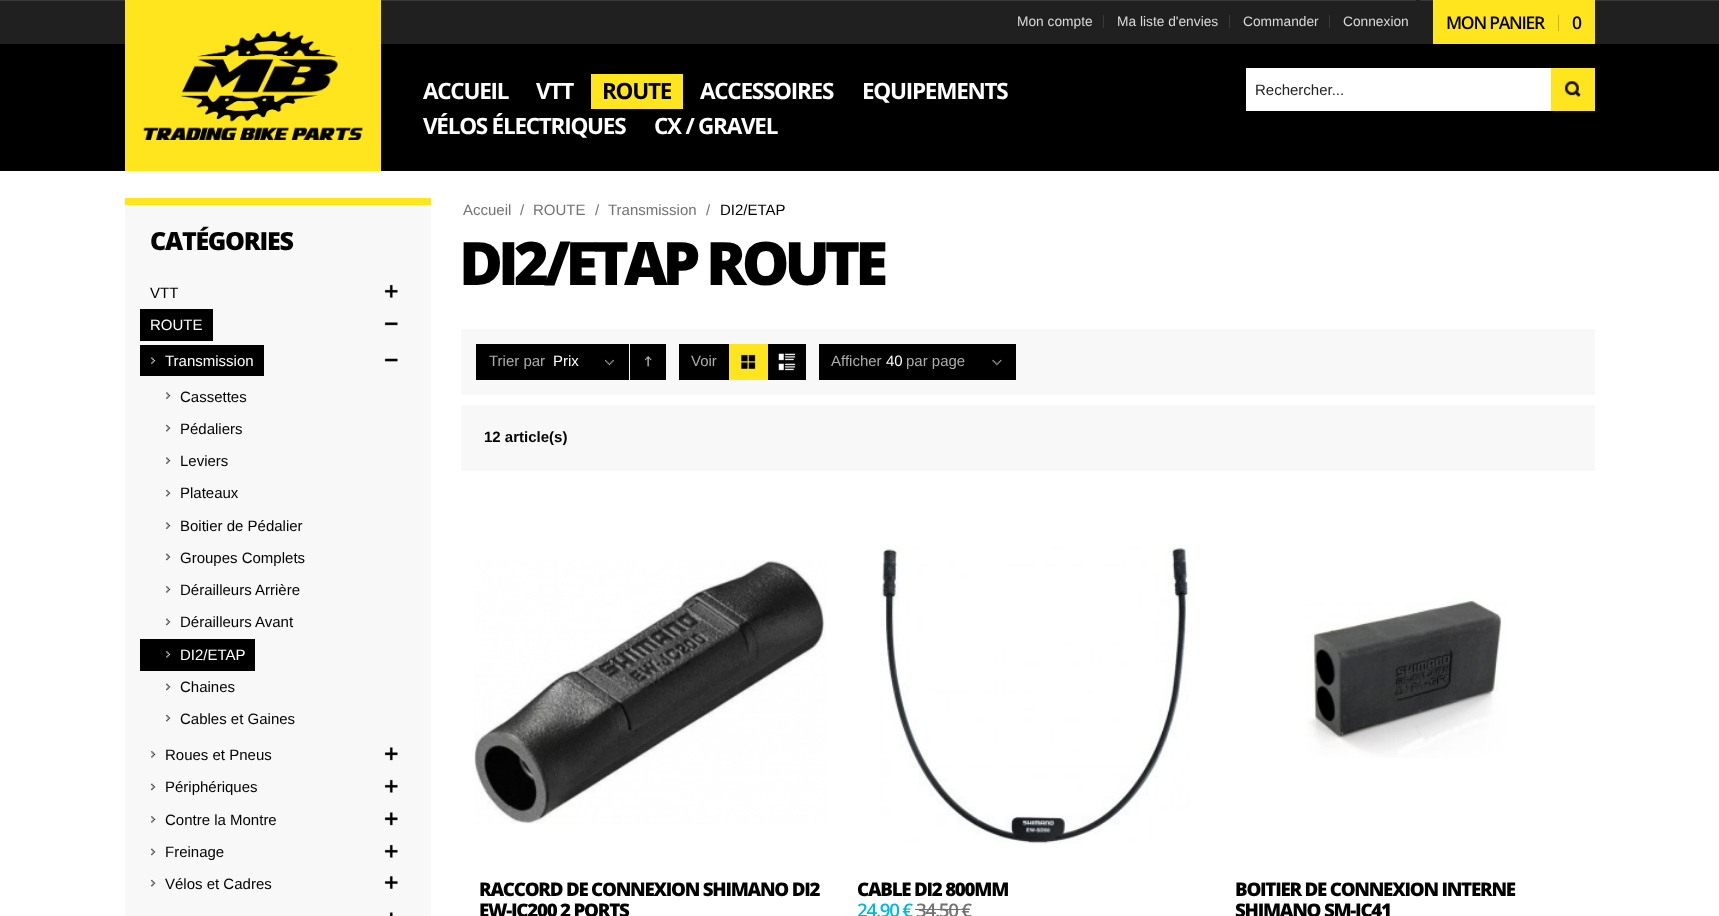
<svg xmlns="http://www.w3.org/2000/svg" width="1719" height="916">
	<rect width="100%" height="100%" fill="#000000" />
	<rect x="0" y="1" width="1719" height="43" fill="#202020" />
	<rect x="0" y="0" width="1719" height="1" fill="#393939" />
	<rect x="125" y="0" width="256" height="171" fill="#FFE51E" />
	<image x="143" y="31" width="220" height="109" href="assets/img1.png" />
	<rect x="1416" y="0" width="4" height="1" fill="#202020" />
	<text x="1017" y="26" font-family="Liberation Sans" font-size="13.75" fill="#D9D9D9">Mon compte</text>
	<rect x="1103" y="15" width="1" height="13" fill="#393939" />
	<text x="1117" y="26" font-family="Liberation Sans" font-size="13.75" fill="#D9D9D9">Ma liste d'envies</text>
	<rect x="1229" y="15" width="1" height="13" fill="#393939" />
	<text x="1243" y="26" font-family="Liberation Sans" font-size="13.75" fill="#D9D9D9">Commander</text>
	<rect x="1329" y="15" width="1" height="13" fill="#393939" />
	<text x="1343" y="26" font-family="Liberation Sans" font-size="13.75" fill="#D9D9D9">Connexion</text>
	<rect x="1433" y="0" width="162" height="44" fill="#FFE51E" />
	<text x="1446" y="29" font-family="Open Sans" font-size="17.5" font-weight="600" letter-spacing="-1.25" fill="#000000">MON PANIER</text>
	<rect x="1558" y="15" width="1" height="16" fill="#C9B518" />
	<text x="1572" y="29" font-family="Open Sans" font-size="17.5" font-weight="600" letter-spacing="-1.25" fill="#000000">0</text>
	<g font-family="Open Sans" font-size="22.5" font-weight="700" letter-spacing="-1.25" fill="#FFFFFF">
		<text x="423" y="99">ACCUEIL</text>
		<text x="536" y="99">VTT</text>
	</g>
	<rect x="591" y="74" width="92" height="35" fill="#FFE51E" />
	<text x="602" y="99" font-family="Open Sans" font-size="22.5" font-weight="700" letter-spacing="-1.25" fill="#000000">ROUTE</text>
	<g font-family="Open Sans" font-size="22.5" font-weight="700" letter-spacing="-1.25" fill="#FFFFFF">
		<text x="700" y="99">ACCESSOIRES</text>
		<text x="862" y="99">EQUIPEMENTS</text>
		<text x="423" y="134">VÉLOS ÉLECTRIQUES</text>
		<text x="654" y="134">CX / GRAVEL</text>
	</g>
	<rect x="1246" y="68" width="305" height="43" fill="#FFFFFF" />
	<text x="1255" y="95" font-family="Liberation Sans" font-size="15" fill="#222222">Rechercher...</text>
	<rect x="1551" y="68" width="44" height="43" fill="#FFE51E" />
	<image x="1564" y="81" width="18" height="17" href="assets/img2.png" />
	<rect x="0" y="171" width="1719" height="745" fill="#FFFFFF" />
	<rect x="125" y="205" width="306" height="711" fill="#F8F8F8" />
	<rect x="125" y="198" width="306" height="7" fill="#FFE51E" />
	<text x="150" y="250" font-family="Open Sans" font-size="25" font-weight="800" letter-spacing="-1.25" fill="#000000">CATÉGORIES</text>
	<text x="150" y="298" font-family="Liberation Sans" font-size="15" fill="#000000">VTT</text>
	<image x="384" y="284" width="14" height="14" href="assets/img3.png" />
	<rect x="140" y="309" width="73" height="32" fill="#000000" />
	<text x="150" y="330" font-family="Liberation Sans" font-size="15" fill="#FFFFFF">ROUTE</text>
	<image x="384" y="322" width="14" height="4" href="assets/img4.png" />
	<rect x="140" y="345" width="124" height="31" fill="#000000" />
	<image x="151" y="357" width="5" height="7" href="assets/img5.png" />
	<text x="165" y="366" font-family="Liberation Sans" font-size="15" fill="#FFFFFF">Transmission</text>
	<image x="384" y="358" width="14" height="4" href="assets/img6.png" />
	<image x="166" y="392" width="5" height="7" href="assets/img7.png" />
	<text x="180" y="402" font-family="Liberation Sans" font-size="15" fill="#000000">Cassettes</text>
	<image x="166" y="424" width="5" height="8" href="assets/img8.png" />
	<text x="180" y="434" font-family="Liberation Sans" font-size="15" fill="#000000">Pédaliers</text>
	<image x="166" y="457" width="5" height="7" href="assets/img7.png" />
	<text x="180" y="466" font-family="Liberation Sans" font-size="15" fill="#000000">Leviers</text>
	<image x="166" y="489" width="5" height="8" href="assets/img8.png" />
	<text x="180" y="498" font-family="Liberation Sans" font-size="15" fill="#000000">Plateaux</text>
	<image x="166" y="522" width="5" height="7" href="assets/img7.png" />
	<text x="180" y="531" font-family="Liberation Sans" font-size="15" fill="#000000">Boitier de Pédalier</text>
	<image x="166" y="553" width="5" height="8" href="assets/img9.png" />
	<text x="180" y="563" font-family="Liberation Sans" font-size="15" fill="#000000">Groupes Complets</text>
	<image x="166" y="586" width="5" height="7" href="assets/img10.png" />
	<text x="180" y="595" font-family="Liberation Sans" font-size="15" fill="#000000">Dérailleurs Arrière</text>
	<image x="166" y="618" width="5" height="8" href="assets/img9.png" />
	<text x="180" y="627" font-family="Liberation Sans" font-size="15" fill="#000000">Dérailleurs Avant</text>
	<rect x="140" y="639" width="115" height="32" fill="#000000" />
	<image x="166" y="651" width="5" height="7" href="assets/img11.png" />
	<text x="180" y="660" font-family="Liberation Sans" font-size="15" fill="#FFFFFF">DI2/ETAP</text>
	<image x="166" y="683" width="5" height="8" href="assets/img9.png" />
	<text x="180" y="692" font-family="Liberation Sans" font-size="15" fill="#000000">Chaines</text>
	<image x="166" y="714" width="5" height="8" href="assets/img8.png" />
	<text x="180" y="724" font-family="Liberation Sans" font-size="15" fill="#000000">Cables et Gaines</text>
	<image x="151" y="751" width="5" height="7" href="assets/img12.png" />
	<text x="165" y="760" font-family="Liberation Sans" font-size="15" fill="#000000">Roues et Pneus</text>
	<image x="384" y="747" width="14" height="14" href="assets/img13.png" />
	<image x="151" y="783" width="5" height="8" href="assets/img9.png" />
	<text x="165" y="792" font-family="Liberation Sans" font-size="15" fill="#000000">Périphériques</text>
	<image x="384" y="779" width="14" height="14" href="assets/img14.png" />
	<image x="151" y="816" width="5" height="7" href="assets/img12.png" />
	<text x="165" y="825" font-family="Liberation Sans" font-size="15" fill="#000000">Contre la Montre</text>
	<image x="384" y="812" width="14" height="14" href="assets/img13.png" />
	<image x="151" y="848" width="5" height="8" href="assets/img9.png" />
	<text x="165" y="857" font-family="Liberation Sans" font-size="15" fill="#000000">Freinage</text>
	<image x="384" y="844" width="14" height="14" href="assets/img14.png" />
	<image x="151" y="879" width="5" height="8" href="assets/img8.png" />
	<text x="165" y="889" font-family="Liberation Sans" font-size="15" fill="#000000">Vélos et Cadres</text>
	<image x="384" y="876" width="14" height="13" href="assets/img15.png" />
	<image x="389" y="912" width="4" height="4" href="assets/img16.png" />
	<g font-family="Liberation Sans" font-size="15" fill="#737373">
		<text x="463" y="215">Accueil</text>
		<text x="520" y="215">/</text>
		<text x="533" y="215">ROUTE</text>
		<text x="595" y="215">/</text>
		<text x="608" y="215">Transmission</text>
		<text x="706" y="215">/</text>
	</g>
	<text x="720" y="215" font-family="Liberation Sans" font-size="15" fill="#000000">DI2/ETAP</text>
	<text x="459" y="285" font-family="Open Sans" font-size="60" font-weight="800" letter-spacing="-5" fill="#000000">DI2/ETAP ROUTE</text>
	<rect x="461" y="329" width="1134" height="66" fill="#F8F8F8" />
	<rect x="476" y="344" width="153" height="36" fill="#000000" />
	<image x="604" y="359" width="10" height="7" href="assets/img17.png" />
	<text x="489" y="366" font-family="Liberation Sans" font-size="15" fill="#ACACAC">Trier par</text>
	<text x="553" y="366" font-family="Liberation Sans" font-size="15" fill="#FFFFFF">Prix</text>
	<rect x="630" y="344" width="36" height="36" fill="#000000" />
	<image x="644" y="356" width="8" height="11" href="assets/img18.png" />
	<rect x="679" y="344" width="127" height="36" fill="#000000" />
	<text x="691" y="366" font-family="Liberation Sans" font-size="15" fill="#ACACAC">Voir</text>
	<rect x="729" y="344" width="39" height="36" fill="#FFE51E" />
	<image x="741" y="354" width="15" height="15" href="assets/img19.png" />
	<image x="778" y="353" width="18" height="18" href="assets/img20.png" />
	<rect x="819" y="344" width="197" height="36" fill="#000000" />
	<image x="992" y="359" width="10" height="7" href="assets/img21.png" />
	<text x="831" y="366" font-family="Liberation Sans" font-size="15" fill="#ACACAC">Afficher</text>
	<text x="886" y="366" font-family="Liberation Sans" font-size="15" fill="#FFFFFF">40</text>
	<text x="906" y="366" font-family="Liberation Sans" font-size="15" fill="#ACACAC">par page</text>
	<rect x="461" y="405" width="1134" height="66" fill="#F8F8F8" />
	<text x="484" y="442" font-family="Liberation Sans" font-size="15" font-weight="700" fill="#000000">12 article(s)</text>
	<image x="474" y="560" width="352" height="264" href="assets/img22.png" />
	<g font-family="Open Sans" font-size="18.75" font-weight="800" letter-spacing="-1.25" fill="#000000">
		<text x="479" y="896">RACCORD DE CONNEXION SHIMANO DI2</text>
		<text x="479" y="917">EW-JC200 2 PORTS</text>
	</g>
	<image x="880" y="547" width="314" height="297" href="assets/img23.png" />
	<text x="857" y="896" font-family="Open Sans" font-size="18.75" font-weight="800" letter-spacing="-1.25" fill="#000000">CABLE DI2 800MM</text>
	<text x="857" y="917" font-family="Open Sans" font-size="18.75" font-weight="600" letter-spacing="-1.25" fill="#00B9D5">24,90 €</text>
	<text x="916" y="917" font-family="Open Sans" font-size="18.75" font-weight="600" letter-spacing="-1.25" fill="#737373">34,50 €</text>
	<rect x="915" y="909" width="55" height="1" fill="#717171" />
	<image x="1306" y="598" width="200" height="160" href="assets/img24.png" />
	<g font-family="Open Sans" font-size="18.75" font-weight="800" letter-spacing="-1.25" fill="#000000">
		<text x="1235" y="896">BOITIER DE CONNEXION INTERNE</text>
		<text x="1235" y="917">SHIMANO SM-JC41</text>
	</g>
</svg>
